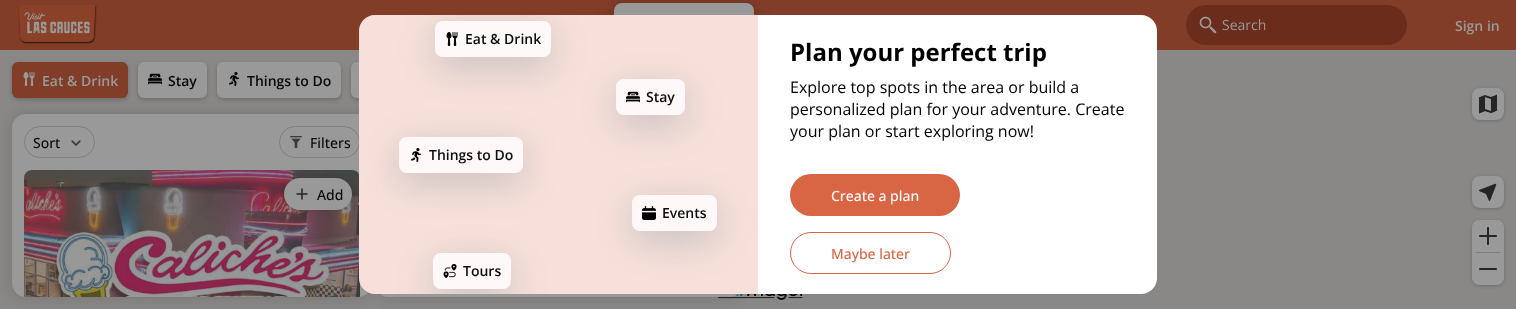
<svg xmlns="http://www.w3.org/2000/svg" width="1516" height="309">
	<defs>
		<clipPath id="clip1"><rect x="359" y="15" width="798" height="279" rx="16" /></clipPath>
		<clipPath id="clip2"><path d="M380 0H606V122H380ZM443 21H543C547.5 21 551 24.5 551 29V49C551 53.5 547.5 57 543 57H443C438.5 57 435 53.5 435 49V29C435 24.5 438.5 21 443 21Z" clip-rule="evenodd" /></clipPath>
		<clipPath id="clip3"><path d="M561 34H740V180H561ZM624 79H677C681.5 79 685 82.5 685 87V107C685 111.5 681.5 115 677 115H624C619.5 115 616 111.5 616 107V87C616 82.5 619.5 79 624 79Z" clip-rule="evenodd" /></clipPath>
		<clipPath id="clip4"><path d="M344 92H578V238H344ZM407 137H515C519.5 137 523 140.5 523 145V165C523 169.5 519.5 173 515 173H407C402.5 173 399 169.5 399 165V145C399 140.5 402.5 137 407 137Z" clip-rule="evenodd" /></clipPath>
		<clipPath id="clip5"><path d="M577 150H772V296H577ZM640 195H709C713.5 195 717 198.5 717 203V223C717 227.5 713.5 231 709 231H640C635.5 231 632 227.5 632 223V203C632 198.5 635.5 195 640 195Z" clip-rule="evenodd" /></clipPath>
		<clipPath id="clip6"><path d="M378 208H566V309H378ZM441 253H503C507.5 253 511 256.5 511 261V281C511 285.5 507.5 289 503 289H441C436.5 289 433 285.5 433 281V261C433 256.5 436.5 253 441 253Z" clip-rule="evenodd" /></clipPath>
	</defs>
	<rect width="100%" height="100%" fill="#898886" />
	<rect x="0" y="0" width="1516" height="50" fill="#823D28" />
	<image x="18" y="5" width="79" height="40" href="assets/img1.png" />
	<rect x="614" y="3" width="140" height="44" rx="8" fill="#000000" fill-opacity="0.2" filter="blur(8px)" />
	<rect x="614" y="3" width="140" height="44" rx="8" fill="#999999" />
	<rect x="1186" y="5" width="221" height="40" rx="20" fill="#6B2C1C" />
	<image x="1199" y="16" width="18" height="18" href="assets/img2.png" />
	<text x="1222" y="30" font-family="Open Sans" font-size="14" fill="#999999">Search</text>
	<text x="1455" y="31" font-family="Open Sans" font-size="14" font-weight="600" fill="#999999">Sign in</text>
	<rect x="12" y="64" width="116" height="36" rx="6" fill="#000000" fill-opacity="0.2" filter="blur(2px)" />
	<rect x="12" y="114" width="360" height="183" rx="14" fill="#000000" fill-opacity="0.15" filter="blur(6.5px)" />
	<rect x="12" y="62" width="116" height="36" rx="6" fill="#823D28" />
	<image x="23" y="72" width="12" height="14" href="assets/img3.png" />
	<text x="42" y="86" font-family="Open Sans" font-size="14" font-weight="600" fill="#999999">Eat &amp; Drink</text>
	<rect x="138" y="64" width="69" height="36" rx="6" fill="#000000" fill-opacity="0.2" filter="blur(2px)" />
	<rect x="138" y="62" width="69" height="36" rx="6" fill="#999999" />
	<image x="148" y="73" width="14" height="12" href="assets/img4.png" />
	<text x="168" y="86" font-family="Open Sans" font-size="14" font-weight="600" fill="#070808">Stay</text>
	<rect x="217" y="64" width="124" height="36" rx="6" fill="#000000" fill-opacity="0.2" filter="blur(2px)" />
	<rect x="217" y="62" width="124" height="36" rx="6" fill="#999999" />
	<image x="229" y="72" width="10" height="14" href="assets/img5.png" />
	<text x="247" y="86" font-family="Open Sans" font-size="14" font-weight="600" fill="#070808">Things to Do</text>
	<rect x="351" y="64" width="85" height="36" rx="6" fill="#000000" fill-opacity="0.2" filter="blur(2px)" />
	<rect x="351" y="62" width="85" height="36" rx="6" fill="#999999" />
	<rect x="1473" y="90" width="30" height="30" rx="7" fill="#000000" fill-opacity="0.3" filter="blur(2px)" />
	<rect x="1472" y="88" width="32" height="32" rx="8" fill="#999999" />
	<image x="1479" y="94" width="18" height="20" href="assets/img6.png" />
	<rect x="1473" y="178" width="30" height="30" rx="7" fill="#000000" fill-opacity="0.3" filter="blur(2px)" />
	<rect x="1472" y="176" width="32" height="32" rx="8" fill="#999999" />
	<image x="1479" y="183" width="18" height="18" href="assets/img7.png" />
	<rect x="1473" y="222" width="30" height="63" rx="7" fill="#000000" fill-opacity="0.3" filter="blur(2px)" />
	<rect x="1472" y="220" width="32" height="65" rx="8" fill="#999999" />
	<path d="M1480 220H1496C1500.5 220 1504 223.5 1504 228V252H1472V228C1472 223.5 1475.5 220 1480 220Z" fill="#999999" />
	<image x="1479" y="227" width="18" height="18" href="assets/img8.png" />
	<rect x="1476" y="252" width="24" height="1" fill="#7D7F82" />
	<path d="M1472 253H1504V277C1504 281.5 1500.5 285 1496 285H1480C1475.5 285 1472 281.5 1472 277Z" fill="#999999" />
	<image x="1479" y="268" width="18" height="2" href="assets/img9.png" />
	<image x="717" y="294" width="87" height="7" href="assets/img10.png" />
	<rect x="12" y="114" width="360" height="183" rx="14" fill="#999999" />
	<rect x="24.5" y="126.5" width="70" height="31" rx="15.5" fill="none" stroke="#7D7F82" />
	<text x="33" y="148" font-family="Open Sans" font-size="14" font-weight="500" fill="#070808">Sort</text>
	<image x="71" y="140" width="10" height="6" href="assets/img11.png" />
	<rect x="279.5" y="126.5" width="80" height="31" rx="15.5" fill="none" stroke="#7D7F82" />
	<image x="290" y="136" width="12" height="12" href="assets/img12.png" />
	<text x="310" y="148" font-family="Open Sans" font-size="14" font-weight="500" fill="#070808">Filters</text>
	<image x="24" y="170" width="336" height="127" href="assets/img13.png" />
	<rect x="284" y="178" width="68" height="32" rx="16" fill="#000000" fill-opacity="0.15" filter="blur(3px)" />
	<rect x="284" y="178" width="68" height="32" rx="16" fill="#999999" />
	<path d="M302 189V199M297 194H307" fill="none" stroke="#232526" stroke-width="1.5" stroke-linecap="round" />
	<text x="317" y="200" font-family="Open Sans" font-size="14" font-weight="500" fill="#070808">Add</text>
	<rect x="379" y="224" width="360" height="73" rx="8" fill="#000000" fill-opacity="0.15" filter="blur(6.5px)" />
	<rect x="379" y="224" width="360" height="73" rx="8" fill="#999999" />
	<rect x="359" y="15" width="798" height="279" rx="16" fill="#FFFFFF" />
	<path d="M375 15H758V294H375C366 294 359 287 359 278V31C359 22 366 15 375 15Z" fill="#D86543" fill-opacity="0.2" />
	<g clip-path="url(#clip1)">
		<g clip-path="url(#clip2)">
			<rect x="435" y="31" width="116" height="36" rx="8" fill="#043F66" fill-opacity="0.2" filter="blur(18px)" />
		</g>
	</g>
	<rect x="435" y="21" width="116" height="36" rx="8" fill="#FFFFFF" fill-opacity="0.8" />
	<image x="446" y="32" width="12" height="14" href="assets/img14.png" />
	<text x="465" y="44" font-family="Open Sans" font-size="14" font-weight="600" fill="#0C0D0E">Eat &amp; Drink</text>
	<g clip-path="url(#clip3)">
		<rect x="616" y="89" width="69" height="36" rx="8" fill="#043F66" fill-opacity="0.2" filter="blur(18px)" />
	</g>
	<rect x="616" y="79" width="69" height="36" rx="8" fill="#FFFFFF" fill-opacity="0.8" />
	<image x="626" y="91" width="14" height="12" href="assets/img15.png" />
	<text x="646" y="102" font-family="Open Sans" font-size="14" font-weight="600" fill="#0C0D0E">Stay</text>
	<g clip-path="url(#clip4)">
		<rect x="399" y="147" width="124" height="36" rx="8" fill="#043F66" fill-opacity="0.2" filter="blur(18px)" />
	</g>
	<rect x="399" y="137" width="124" height="36" rx="8" fill="#FFFFFF" fill-opacity="0.8" />
	<image x="411" y="148" width="10" height="14" href="assets/img16.png" />
	<text x="429" y="160" font-family="Open Sans" font-size="14" font-weight="600" fill="#0C0D0E">Things to Do</text>
	<g clip-path="url(#clip5)">
		<rect x="632" y="205" width="85" height="36" rx="8" fill="#043F66" fill-opacity="0.2" filter="blur(18px)" />
	</g>
	<rect x="632" y="195" width="85" height="36" rx="8" fill="#FFFFFF" fill-opacity="0.8" />
	<image x="642" y="206" width="14" height="14" href="assets/img17.png" />
	<text x="662" y="218" font-family="Open Sans" font-size="14" font-weight="600" fill="#0C0D0E">Events</text>
	<g clip-path="url(#clip1)">
		<g clip-path="url(#clip6)">
			<rect x="433" y="263" width="78" height="36" rx="8" fill="#043F66" fill-opacity="0.2" filter="blur(18px)" />
		</g>
	</g>
	<rect x="433" y="253" width="78" height="36" rx="8" fill="#FFFFFF" fill-opacity="0.8" />
	<image x="443" y="264" width="14" height="14" href="assets/img18.png" />
	<text x="463" y="276" font-family="Open Sans" font-size="14" font-weight="600" fill="#0C0D0E">Tours</text>
	<text x="790" y="61" font-family="Open Sans" font-size="24" font-weight="700" fill="#000000">Plan your perfect trip</text>
	<g font-family="Open Sans" font-size="16" fill="#000000">
		<text x="790" y="93">Explore top spots in the area or build a</text>
		<text x="790" y="115">personalized plan for your adventure. Create</text>
		<text x="790" y="137">your plan or start exploring now!</text>
	</g>
	<rect x="790" y="174" width="170" height="42" rx="21" fill="#D86543" />
	<text x="831" y="201" font-family="Open Sans" font-size="14" font-weight="500" fill="#FFFFFF">Create a plan</text>
	<rect x="790.5" y="232.5" width="160" height="41" rx="20.5" fill="none" stroke="#D86543" />
	<text x="831" y="259" font-family="Open Sans" font-size="14" font-weight="500" fill="#D86543">Maybe later</text>
</svg>
